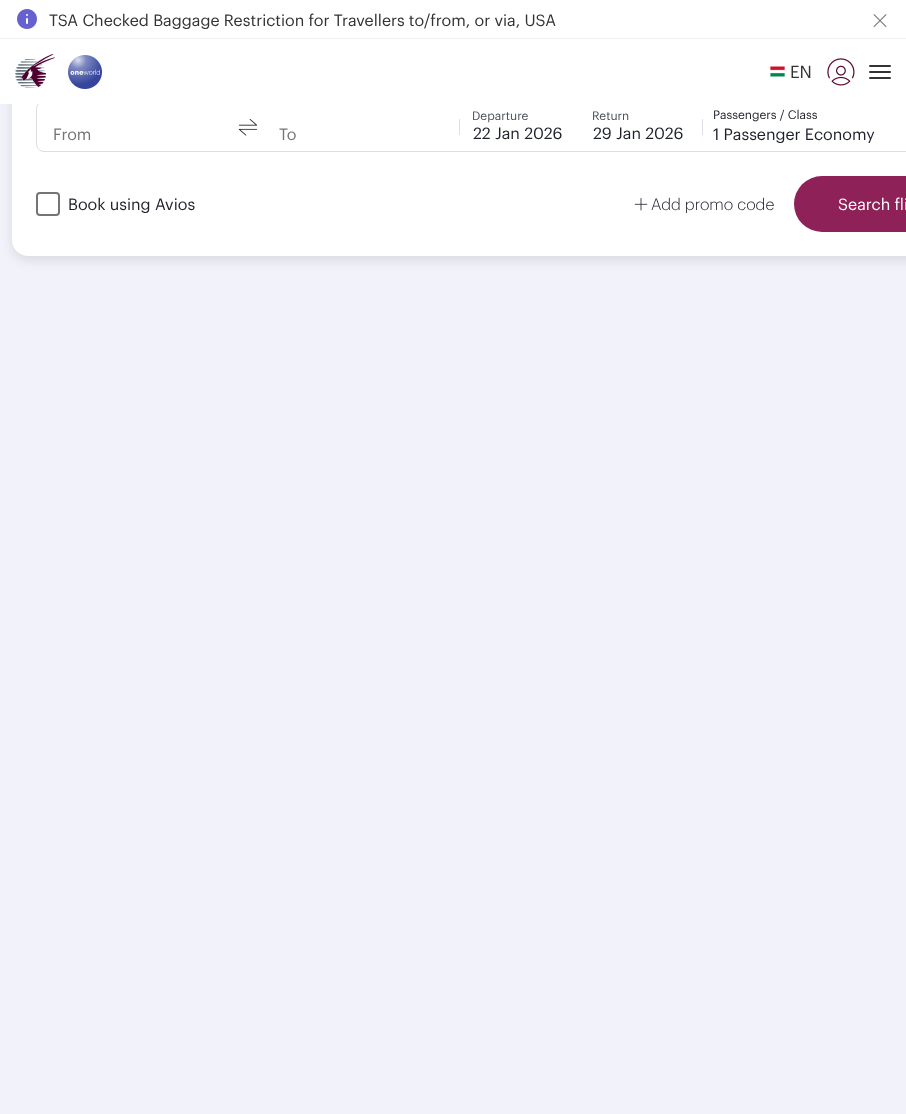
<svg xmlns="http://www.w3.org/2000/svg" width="906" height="1114">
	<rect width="100%" height="100%" fill="#F2F3FA" />
	<rect x="12" y="33" width="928" height="227" rx="16" fill="#000000" fill-opacity="0.1" filter="blur(6px)" />
	<rect x="12" y="29" width="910" height="227" rx="16" fill="#FFFFFF" />
	<rect x="0" y="0" width="906" height="38" fill="#FFFFFF" />
	<rect x="0" y="38" width="906" height="1" fill="#EFF0F1" />
	<image x="17" y="9" width="20" height="20" href="assets/img1.png" />
	<text x="49" y="26" font-family="Graphik" font-size="16" fill="#333333">TSA Checked Baggage Restriction for Travellers to/from, or via, USA</text>
	<image x="873" y="14" width="14" height="13" href="assets/img2.png" />
	<rect x="36.5" y="101.5" width="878" height="50" rx="7.5" fill="none" stroke="#DBDEE8" />
	<rect x="0" y="39" width="906" height="65" fill="#FFFFFF" />
	<image x="15" y="54" width="40" height="34" href="assets/img3.png" />
	<image x="68" y="55" width="34" height="34" href="assets/img4.png" />
	<image x="770" y="66" width="15" height="11" href="assets/img5.png" />
	<text x="790" y="78" font-family="Graphik" font-size="17" fill="#333333">EN</text>
	<image x="827" y="58" width="28" height="28" href="assets/img6.png" />
	<rect x="869" y="65" width="22" height="2" rx="1" fill="#333333" />
	<rect x="869" y="71" width="22" height="2" rx="1" fill="#333333" />
	<rect x="869" y="77" width="22" height="2" rx="1" fill="#333333" />
	<text x="53" y="140" font-family="Graphik" font-size="16" fill="#757575">From</text>
	<image x="238" y="119" width="20" height="17" href="assets/img7.png" />
	<text x="279" y="140" font-family="Graphik" font-size="16" fill="#757575">To</text>
	<rect x="459" y="119" width="1" height="16" fill="#DBDEE8" />
	<text x="472" y="120" font-family="Graphik" font-size="12" fill="#4A525D">Departure</text>
	<text x="473" y="139" font-family="Graphik" font-size="16" fill="#1F212B">22 Jan 2026</text>
	<text x="592" y="120" font-family="Graphik" font-size="12" fill="#4A525D">Return</text>
	<text x="593" y="139" font-family="Graphik" font-size="16" fill="#1F212B">29 Jan 2026</text>
	<rect x="702" y="119" width="1" height="16" fill="#DBDEE8" />
	<text x="713" y="119" font-family="Graphik" font-size="12" fill="#1F212B">Passengers / Class</text>
	<text x="713" y="140" font-family="Graphik" font-size="16" fill="#1F212B">1 Passenger Economy</text>
	<rect x="37" y="193" width="22" height="22" rx="3" fill="none" stroke="#757575" stroke-width="2" />
	<text x="68" y="210" font-family="Graphik" font-size="16" fill="#1F212B">Book using Avios</text>
	<image x="634" y="198" width="14" height="13" href="assets/img8.png" />
	<text x="651" y="210" font-family="Graphik" font-size="16" font-weight="300" fill="#1F212B">Add promo code</text>
	<rect x="794" y="176" width="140" height="56" rx="28" fill="#8E2157" />
	<text x="838" y="210" font-family="Graphik" font-size="16" fill="#FFFFFF">Search fli</text>
</svg>
